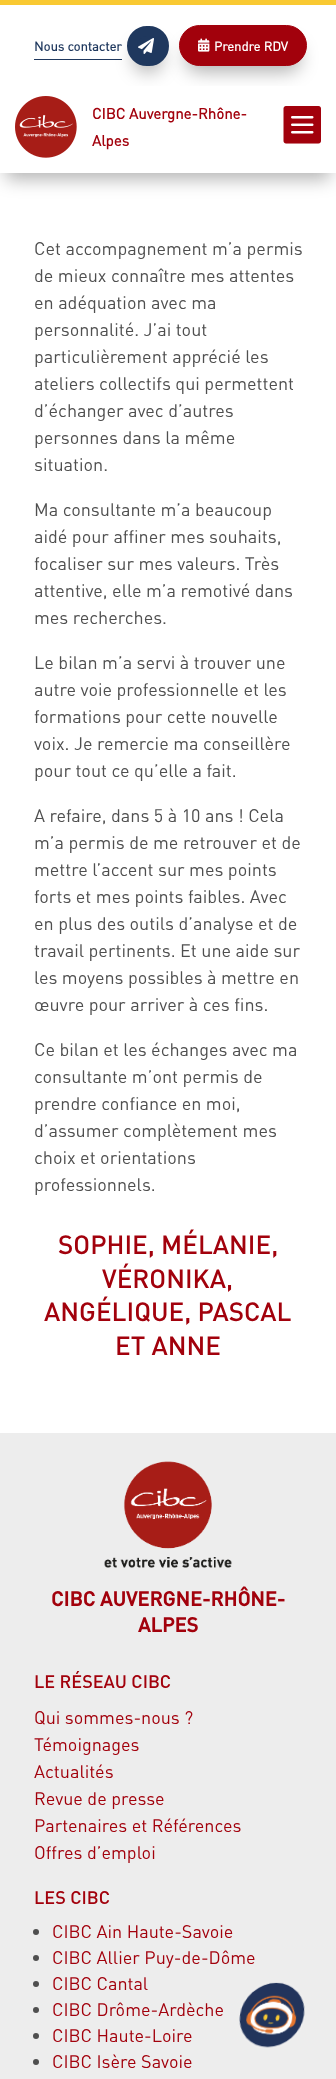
<svg xmlns="http://www.w3.org/2000/svg" width="336" height="2079">
	<rect width="100%" height="100%" fill="#FFFFFF" />
	<rect x="6" y="18" width="324" height="161" fill="#000000" fill-opacity="0.3" filter="blur(9px)" />
	<rect x="0" y="0" width="336" height="5" fill="#F9C932" />
	<rect x="0" y="5" width="336" height="81" fill="#FFFFFF" />
	<rect x="34" y="59" width="88" height="1" fill="#1F385E" />
	<text x="34" y="51" font-family="'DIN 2'" font-size="13" font-weight="700" fill="#1F385E">Nous contacter</text>
	<rect x="133" y="44" width="30" height="28" rx="14" fill="#000000" fill-opacity="0.3" filter="blur(9px)" />
	<rect x="132" y="31" width="32" height="30" rx="15" fill="#1F385E" stroke="#1F385E" stroke-width="10" />
	<image x="138" y="38" width="16" height="16" href="assets/img1.png" />
	<rect x="185" y="43" width="116" height="29" rx="14.5" fill="#000000" fill-opacity="0.3" filter="blur(9px)" />
	<rect x="179.5" y="25.5" width="127" height="40" rx="20" fill="#A2010C" stroke="#A2010C" />
	<image x="198" y="38" width="12" height="14" href="assets/img2.png" />
	<text x="214" y="51" font-family="'DIN 2'" font-size="13" font-weight="700" fill="#FFFFFF">Prendre RDV</text>
	<rect x="0" y="86" width="336" height="87" fill="#FFFFFF" />
	<image x="15" y="96" width="62" height="62" href="assets/img3.png" />
	<g font-family="'DIN 2'" font-size="15" font-weight="700" fill="#A2010C">
		<text x="92" y="119">CIBC Auvergne-Rhône-</text>
		<text x="92" y="146">Alpes</text>
	</g>
	<image x="283" y="106" width="38" height="38" href="assets/img4.png" />
	<g font-family="DIN" font-size="18" fill="#4F4F4F">
		<text x="34" y="255">Cet accompagnement m’a permis</text>
		<text x="34" y="282">de mieux connaître mes attentes</text>
		<text x="34" y="309">en adéquation avec ma</text>
		<text x="34" y="336">personnalité. J’ai tout</text>
		<text x="34" y="363">particulièrement apprécié les</text>
		<text x="34" y="390">ateliers collectifs qui permettent</text>
		<text x="34" y="417">d’échanger avec d’autres</text>
		<text x="34" y="444">personnes dans la même</text>
		<text x="34" y="471">situation.</text>
		<text x="34" y="516">Ma consultante m’a beaucoup</text>
		<text x="34" y="543">aidé pour affiner mes souhaits,</text>
		<text x="34" y="570">focaliser sur mes valeurs. Très</text>
		<text x="34" y="597">attentive, elle m’a remotivé dans</text>
		<text x="34" y="624">mes recherches.</text>
		<text x="34" y="669">Le bilan m’a servi à trouver une</text>
		<text x="34" y="696">autre voie professionnelle et les</text>
		<text x="34" y="723">formations pour cette nouvelle</text>
		<text x="34" y="750">voix. Je remercie ma conseillère</text>
		<text x="34" y="777">pour tout ce qu’elle a fait.</text>
		<text x="34" y="822">A refaire, dans 5 à 10 ans ! Cela</text>
		<text x="34" y="849">m’a permis de me retrouver et de</text>
		<text x="34" y="876">mettre l’accent sur mes points</text>
		<text x="34" y="903">forts et mes points faibles. Avec</text>
		<text x="34" y="930">en plus des outils d’analyse et de</text>
		<text x="34" y="957">travail pertinents. Et une aide sur</text>
		<text x="34" y="984">les moyens possibles à mettre en</text>
		<text x="34" y="1011">œuvre pour arriver à ces fins.</text>
		<text x="34" y="1056">Ce bilan et les échanges avec ma</text>
		<text x="34" y="1083">consultante m’ont permis de</text>
		<text x="34" y="1110">prendre confiance en moi,</text>
		<text x="34" y="1137">d’assumer complètement mes</text>
		<text x="34" y="1164">choix et orientations</text>
		<text x="34" y="1191">professionnels.</text>
	</g>
	<g font-family="DIN" font-size="26" font-weight="500" fill="#A2010C">
		<text x="58" y="1254">SOPHIE, MÉLANIE,</text>
		<text x="102" y="1288">VÉRONIKA,</text>
		<text x="44" y="1321">ANGÉLIQUE, PASCAL</text>
		<text x="115" y="1355">ET ANNE</text>
	</g>
	<rect x="0" y="1433" width="336" height="646" fill="#EDEDED" />
	<image x="104" y="1461" width="128" height="107" href="assets/img5.png" />
	<g font-family="DIN" font-size="20" font-weight="700" fill="#A2010C">
		<text x="51" y="1606">CIBC AUVERGNE-RHÔNE-</text>
		<text x="138" y="1632">ALPES</text>
	</g>
	<text x="34" y="1688" font-family="DIN" font-size="18" font-weight="500" fill="#A2010C">LE RÉSEAU CIBC</text>
	<g font-family="DIN" font-size="18" fill="#A2010C">
		<text x="34" y="1724">Qui sommes-nous ?</text>
		<text x="34" y="1751">Témoignages</text>
		<text x="34" y="1778">Actualités</text>
		<text x="34" y="1805">Revue de presse</text>
		<text x="34" y="1832">Partenaires et Références</text>
		<text x="34" y="1859">Offres d’emploi</text>
	</g>
	<text x="34" y="1904" font-family="DIN" font-size="18" font-weight="500" fill="#A2010C">LES CIBC</text>
	<circle cx="36" cy="1932" r="3" fill="#4F4F4F" />
	<text x="52" y="1938" font-family="DIN" font-size="18" fill="#A2010C">CIBC Ain Haute-Savoie</text>
	<circle cx="36" cy="1958" r="3" fill="#4F4F4F" />
	<text x="52" y="1964" font-family="DIN" font-size="18" fill="#A2010C">CIBC Allier Puy-de-Dôme</text>
	<circle cx="36" cy="1984" r="3" fill="#4F4F4F" />
	<text x="52" y="1990" font-family="DIN" font-size="18" fill="#A2010C">CIBC Cantal</text>
	<circle cx="36" cy="2010" r="3" fill="#4F4F4F" />
	<text x="52" y="2016" font-family="DIN" font-size="18" fill="#A2010C">CIBC Drôme-Ardèche</text>
	<circle cx="36" cy="2036" r="3" fill="#4F4F4F" />
	<text x="52" y="2042" font-family="DIN" font-size="18" fill="#A2010C">CIBC Haute-Loire</text>
	<circle cx="36" cy="2062" r="3" fill="#4F4F4F" />
	<text x="52" y="2068" font-family="DIN" font-size="18" fill="#A2010C">CIBC Isère Savoie</text>
	<image x="239" y="1982" width="66" height="66" href="assets/img6.png" />
</svg>
